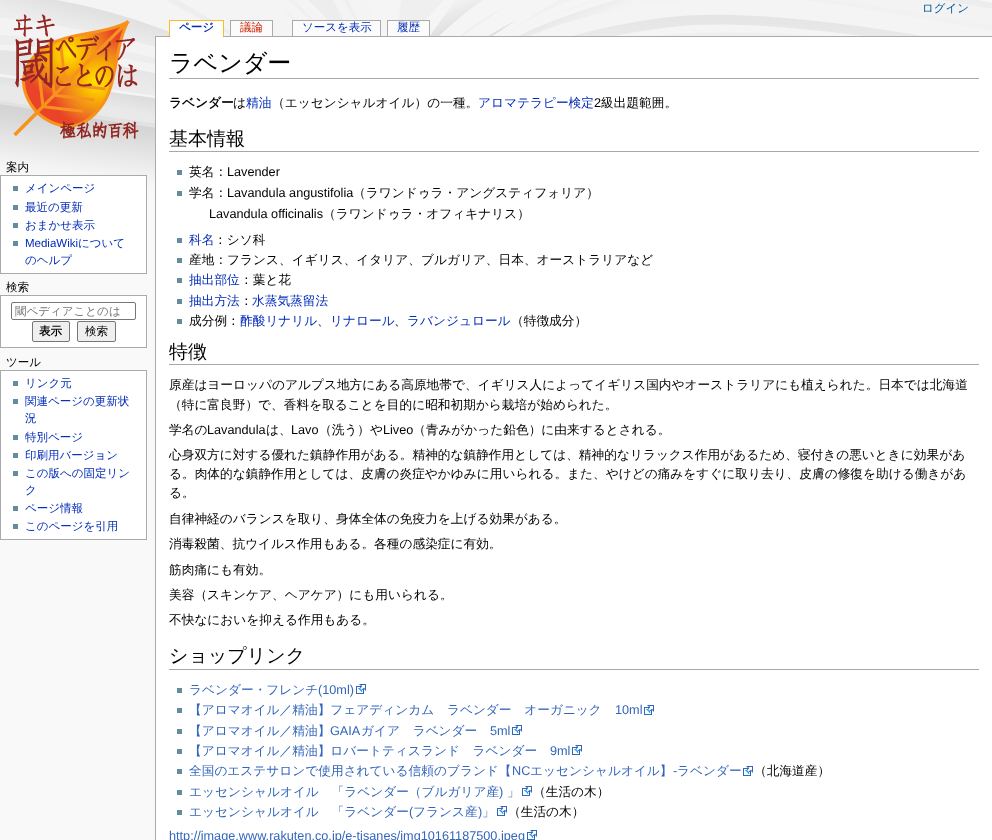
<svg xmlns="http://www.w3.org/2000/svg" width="992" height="840">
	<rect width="100%" height="100%" fill="#F9F9F9" />
	<image x="0" y="0" width="992" height="210" href="assets/img1.png" />
	<text x="922" y="12" font-family="WenQuanYi Zen Hei" font-size="11.5" font-weight="500" fill="#005896">ログイン</text>
	<image x="13" y="14" width="126" height="125" href="assets/img2.png" />
	<rect x="155" y="36" width="837" height="1" fill="#AAAAAA" />
	<rect x="170" y="21" width="53" height="16" fill="#FFFFFF" />
	<text x="179" y="31" font-family="WenQuanYi Zen Hei" font-size="11.5" font-weight="700" fill="#002BB8">ページ</text>
	<rect x="169" y="20" width="55" height="1" fill="#FABD23" />
	<rect x="223" y="20" width="1" height="16" fill="#FABD23" />
	<rect x="169" y="20" width="1" height="16" fill="#FABD23" />
	<rect x="231" y="21" width="41" height="15" fill="#FBFBFB" />
	<text x="240" y="31" font-family="WenQuanYi Zen Hei" font-size="11.5" font-weight="500" fill="#CC2200">議論</text>
	<rect x="230" y="20" width="43" height="1" fill="#AAAAAA" />
	<rect x="272" y="20" width="1" height="16" fill="#AAAAAA" />
	<rect x="230" y="20" width="1" height="16" fill="#AAAAAA" />
	<rect x="293" y="21" width="87" height="15" fill="#FBFBFB" />
	<text x="302" y="31" font-family="WenQuanYi Zen Hei" font-size="11.5" font-weight="500" fill="#002BB8">ソースを表示</text>
	<rect x="292" y="20" width="89" height="1" fill="#AAAAAA" />
	<rect x="380" y="20" width="1" height="16" fill="#AAAAAA" />
	<rect x="292" y="20" width="1" height="16" fill="#AAAAAA" />
	<rect x="388" y="21" width="41" height="15" fill="#FBFBFB" />
	<text x="397" y="31" font-family="WenQuanYi Zen Hei" font-size="11.5" font-weight="500" fill="#002BB8">履歴</text>
	<rect x="387" y="20" width="43" height="1" fill="#AAAAAA" />
	<rect x="429" y="20" width="1" height="16" fill="#AAAAAA" />
	<rect x="387" y="20" width="1" height="16" fill="#AAAAAA" />
	<text x="6" y="171" font-family="WenQuanYi Zen Hei" font-size="11.5" font-weight="500" fill="#000000">案内</text>
	<rect x="0.5" y="175.5" width="146" height="98" fill="#FFFFFF" stroke="#AAAAAA" />
	<rect x="13" y="186" width="5" height="5" fill="#638C9C" />
	<text x="25" y="192" font-family="WenQuanYi Zen Hei" font-size="11.5" font-weight="500" fill="#002BB8">メインページ</text>
	<rect x="13" y="205" width="5" height="5" fill="#638C9C" />
	<text x="25" y="211" font-family="WenQuanYi Zen Hei" font-size="11.5" font-weight="500" fill="#002BB8">最近の更新</text>
	<rect x="13" y="223" width="5" height="5" fill="#638C9C" />
	<text x="25" y="229" font-family="WenQuanYi Zen Hei" font-size="11.5" font-weight="500" fill="#002BB8">おまかせ表示</text>
	<rect x="13" y="241" width="5" height="5" fill="#638C9C" />
	<text x="25" y="247" font-family="Liberation Sans" font-size="11.5" fill="#002BB8">MediaWiki</text>
	<g font-family="WenQuanYi Zen Hei" font-size="11.5" font-weight="500" fill="#002BB8">
		<text x="78" y="247">について</text>
		<text x="25" y="264">のヘルプ</text>
	</g>
	<text x="6" y="291" font-family="WenQuanYi Zen Hei" font-size="11.5" font-weight="500" fill="#000000">検索</text>
	<rect x="0.5" y="295.5" width="146" height="52" fill="#FFFFFF" stroke="#AAAAAA" />
	<rect x="11.5" y="302.5" width="124" height="17" rx="1.5" fill="none" stroke="#767676" />
	<text x="15" y="315" font-family="WenQuanYi Zen Hei" font-size="11.5" font-weight="500" fill="#757575">閾ペディアことのは</text>
	<rect x="32.5" y="321.5" width="37" height="20" rx="1.5" fill="#EFEFEF" stroke="#767676" />
	<text x="39" y="335" font-family="WenQuanYi Zen Hei" font-size="11.5" font-weight="700" fill="#000000">表示</text>
	<rect x="77.5" y="321.5" width="38" height="20" rx="1.5" fill="#EFEFEF" stroke="#767676" />
	<g font-family="WenQuanYi Zen Hei" font-size="11.5" font-weight="500" fill="#000000">
		<text x="85" y="335">検索</text>
		<text x="6" y="366">ツール</text>
	</g>
	<rect x="0.5" y="370.5" width="146" height="169" fill="#FFFFFF" stroke="#AAAAAA" />
	<rect x="13" y="381" width="5" height="5" fill="#638C9C" />
	<text x="25" y="387" font-family="WenQuanYi Zen Hei" font-size="11.5" font-weight="500" fill="#002BB8">リンク元</text>
	<rect x="13" y="399" width="5" height="5" fill="#638C9C" />
	<g font-family="WenQuanYi Zen Hei" font-size="11.5" font-weight="500" fill="#002BB8">
		<text x="25" y="405">関連ページの更新状</text>
		<text x="25" y="422">況</text>
	</g>
	<rect x="13" y="435" width="5" height="5" fill="#638C9C" />
	<text x="25" y="441" font-family="WenQuanYi Zen Hei" font-size="11.5" font-weight="500" fill="#002BB8">特別ページ</text>
	<rect x="13" y="453" width="5" height="5" fill="#638C9C" />
	<text x="25" y="459" font-family="WenQuanYi Zen Hei" font-size="11.5" font-weight="500" fill="#002BB8">印刷用バージョン</text>
	<rect x="13" y="471" width="5" height="5" fill="#638C9C" />
	<g font-family="WenQuanYi Zen Hei" font-size="11.5" font-weight="500" fill="#002BB8">
		<text x="25" y="477">この版への固定リン</text>
		<text x="25" y="494">ク</text>
	</g>
	<rect x="13" y="506" width="5" height="5" fill="#638C9C" />
	<text x="25" y="512" font-family="WenQuanYi Zen Hei" font-size="11.5" font-weight="500" fill="#002BB8">ページ情報</text>
	<rect x="13" y="524" width="5" height="5" fill="#638C9C" />
	<text x="25" y="530" font-family="WenQuanYi Zen Hei" font-size="11.5" font-weight="500" fill="#002BB8">このページを引用</text>
	<rect x="156" y="37" width="836" height="803" fill="#FFFFFF" />
	<rect x="155" y="36" width="1" height="804" fill="#AAAAAA" />
	<rect x="169" y="78" width="810" height="1" fill="#A2A9B1" />
	<text x="169" y="71" font-family="WenQuanYi Zen Hei" font-size="24" font-weight="500" fill="#000000">ラベンダー</text>
	<text x="169" y="107" font-family="WenQuanYi Zen Hei" font-size="12.7" font-weight="700" fill="#000000">ラベンダー</text>
	<text x="233" y="107" font-family="WenQuanYi Zen Hei" font-size="12.7" font-weight="500" fill="#000000">は</text>
	<text x="246" y="107" font-family="WenQuanYi Zen Hei" font-size="12.7" font-weight="500" fill="#002BB8">精油</text>
	<text x="272" y="107" font-family="WenQuanYi Zen Hei" font-size="12.7" font-weight="500" fill="#000000">（エッセンシャルオイル）の一種。</text>
	<text x="478" y="107" font-family="WenQuanYi Zen Hei" font-size="12.7" font-weight="500" fill="#002BB8">アロマテラピー検定</text>
	<text x="594" y="107" font-family="Liberation Sans" font-size="12.7" fill="#000000">2</text>
	<text x="601" y="107" font-family="WenQuanYi Zen Hei" font-size="12.7" font-weight="500" fill="#000000">級出題範囲。</text>
	<rect x="169" y="151" width="810" height="1" fill="#A2A9B1" />
	<text x="169" y="145" font-family="WenQuanYi Zen Hei" font-size="19" font-weight="500" fill="#000000">基本情報</text>
	<rect x="177" y="170" width="5" height="5" fill="#638C9C" />
	<text x="189" y="176" font-family="WenQuanYi Zen Hei" font-size="12.7" font-weight="500" fill="#000000">英名：</text>
	<text x="227" y="176" font-family="Liberation Sans" font-size="12.7" fill="#000000">Lavender</text>
	<rect x="177" y="191" width="5" height="5" fill="#638C9C" />
	<text x="189" y="197" font-family="WenQuanYi Zen Hei" font-size="12.7" font-weight="500" fill="#000000">学名：</text>
	<text x="227" y="197" font-family="Liberation Sans" font-size="12.7" fill="#000000">Lavandula angustifolia</text>
	<text x="353" y="197" font-family="WenQuanYi Zen Hei" font-size="12.7" font-weight="500" fill="#000000">（ラワンドゥラ・アングスティフォリア）</text>
	<text x="209" y="218" font-family="Liberation Sans" font-size="12.7" fill="#000000">Lavandula officinalis</text>
	<text x="323" y="218" font-family="WenQuanYi Zen Hei" font-size="12.7" font-weight="500" fill="#000000">（ラワンドゥラ・オフィキナリス）</text>
	<rect x="177" y="238" width="5" height="5" fill="#638C9C" />
	<text x="189" y="244" font-family="WenQuanYi Zen Hei" font-size="12.7" font-weight="500" fill="#002BB8">科名</text>
	<text x="214" y="244" font-family="WenQuanYi Zen Hei" font-size="12.7" font-weight="500" fill="#000000">：シソ科</text>
	<rect x="177" y="258" width="5" height="5" fill="#638C9C" />
	<text x="189" y="264" font-family="WenQuanYi Zen Hei" font-size="12.7" font-weight="500" fill="#000000">産地：フランス、イギリス、イタリア、ブルガリア、日本、オーストラリアなど</text>
	<rect x="177" y="278" width="5" height="5" fill="#638C9C" />
	<text x="189" y="284" font-family="WenQuanYi Zen Hei" font-size="12.7" font-weight="500" fill="#002BB8">抽出部位</text>
	<text x="240" y="284" font-family="WenQuanYi Zen Hei" font-size="12.7" font-weight="500" fill="#000000">：葉と花</text>
	<rect x="177" y="299" width="5" height="5" fill="#638C9C" />
	<text x="189" y="305" font-family="WenQuanYi Zen Hei" font-size="12.7" font-weight="500" fill="#002BB8">抽出方法</text>
	<text x="240" y="305" font-family="WenQuanYi Zen Hei" font-size="12.7" font-weight="500" fill="#000000">：</text>
	<text x="252" y="305" font-family="WenQuanYi Zen Hei" font-size="12.7" font-weight="500" fill="#002BB8">水蒸気蒸留法</text>
	<rect x="177" y="319" width="5" height="5" fill="#638C9C" />
	<text x="189" y="325" font-family="WenQuanYi Zen Hei" font-size="12.7" font-weight="500" fill="#000000">成分例：</text>
	<text x="240" y="325" font-family="WenQuanYi Zen Hei" font-size="12.7" font-weight="500" fill="#002BB8">酢酸リナリル</text>
	<text x="317" y="325" font-family="WenQuanYi Zen Hei" font-size="12.7" font-weight="500" fill="#000000">、</text>
	<text x="330" y="325" font-family="WenQuanYi Zen Hei" font-size="12.7" font-weight="500" fill="#002BB8">リナロール</text>
	<text x="394" y="325" font-family="WenQuanYi Zen Hei" font-size="12.7" font-weight="500" fill="#000000">、</text>
	<text x="407" y="325" font-family="WenQuanYi Zen Hei" font-size="12.7" font-weight="500" fill="#002BB8">ラバンジュロール</text>
	<text x="511" y="325" font-family="WenQuanYi Zen Hei" font-size="12.7" font-weight="500" fill="#000000">（特徴成分）</text>
	<rect x="169" y="364" width="810" height="1" fill="#A2A9B1" />
	<text x="169" y="358" font-family="WenQuanYi Zen Hei" font-size="19" font-weight="500" fill="#000000">特徴</text>
	<g font-family="WenQuanYi Zen Hei" font-size="12.7" font-weight="500" fill="#000000">
		<text x="169" y="389">原産はヨーロッパのアルプス地方にある高原地帯で、イギリス人によってイギリス国内やオーストラリアにも植えられた。日本では北海道</text>
		<text x="169" y="409">（特に富良野）で、香料を取ることを目的に昭和初期から栽培が始められた。</text>
		<text x="169" y="434">学名の</text>
	</g>
	<text x="207" y="434" font-family="Liberation Sans" font-size="12.7" fill="#000000">Lavandula</text>
	<text x="266" y="434" font-family="WenQuanYi Zen Hei" font-size="12.7" font-weight="500" fill="#000000">は、</text>
	<text x="291" y="434" font-family="Liberation Sans" font-size="12.7" fill="#000000">Lavo</text>
	<text x="319" y="434" font-family="WenQuanYi Zen Hei" font-size="12.7" font-weight="500" fill="#000000">（洗う）や</text>
	<text x="383" y="434" font-family="Liberation Sans" font-size="12.7" fill="#000000">Liveo</text>
	<g font-family="WenQuanYi Zen Hei" font-size="12.7" font-weight="500" fill="#000000">
		<text x="413" y="434">（青みがかった鉛色）に由来するとされる。</text>
		<text x="169" y="459">心身双方に対する優れた鎮静作用がある。精神的な鎮静作用としては、精神的なリラックス作用があるため、寝付きの悪いときに効果があ</text>
		<text x="169" y="478">る。肉体的な鎮静作用としては、皮膚の炎症やかゆみに用いられる。また、やけどの痛みをすぐに取り去り、皮膚の修復を助ける働きがあ</text>
		<text x="169" y="497">る。</text>
		<text x="169" y="523">自律神経のバランスを取り、身体全体の免疫力を上げる効果がある。</text>
		<text x="169" y="548">消毒殺菌、抗ウイルス作用もある。各種の感染症に有効。</text>
		<text x="169" y="574">筋肉痛にも有効。</text>
		<text x="169" y="599">美容（スキンケア、ヘアケア）にも用いられる。</text>
		<text x="169" y="624">不快なにおいを抑える作用もある。</text>
	</g>
	<rect x="169" y="669" width="810" height="1" fill="#A2A9B1" />
	<text x="169" y="662" font-family="WenQuanYi Zen Hei" font-size="19" font-weight="500" fill="#000000">ショップリンク</text>
	<rect x="177" y="688" width="5" height="5" fill="#638C9C" />
	<text x="189" y="694" font-family="WenQuanYi Zen Hei" font-size="12.7" font-weight="500" fill="#3366BB">ラベンダー・フレンチ</text>
	<text x="318" y="694" font-family="Liberation Sans" font-size="12.7" fill="#3366BB">(10ml)</text>
	<image x="356" y="684" width="10" height="10" href="assets/img3.png" />
	<rect x="177" y="708" width="5" height="5" fill="#638C9C" />
	<text x="189" y="714" font-family="WenQuanYi Zen Hei" font-size="12.7" font-weight="500" fill="#3366BB">【アロマオイル／精油】フェアディンカム　ラベンダー　オーガニック</text>
	<text x="615" y="714" font-family="Liberation Sans" font-size="12.7" fill="#3366BB">10ml</text>
	<image x="644" y="705" width="10" height="10" href="assets/img3.png" />
	<rect x="177" y="729" width="5" height="5" fill="#638C9C" />
	<text x="189" y="735" font-family="WenQuanYi Zen Hei" font-size="12.7" font-weight="500" fill="#3366BB">【アロマオイル／精油】</text>
	<text x="330" y="735" font-family="Liberation Sans" font-size="12.7" fill="#3366BB">GAIA</text>
	<text x="361" y="735" font-family="WenQuanYi Zen Hei" font-size="12.7" font-weight="500" fill="#3366BB">ガイア　ラベンダー</text>
	<text x="490" y="735" font-family="Liberation Sans" font-size="12.7" fill="#3366BB">5ml</text>
	<image x="512" y="725" width="10" height="10" href="assets/img3.png" />
	<rect x="177" y="749" width="5" height="5" fill="#638C9C" />
	<text x="189" y="755" font-family="WenQuanYi Zen Hei" font-size="12.7" font-weight="500" fill="#3366BB">【アロマオイル／精油】ロバートティスランド　ラベンダー</text>
	<text x="550" y="755" font-family="Liberation Sans" font-size="12.7" fill="#3366BB">9ml</text>
	<image x="572" y="745" width="10" height="10" href="assets/img3.png" />
	<rect x="177" y="769" width="5" height="5" fill="#638C9C" />
	<text x="189" y="775" font-family="WenQuanYi Zen Hei" font-size="12.7" font-weight="500" fill="#3366BB">全国のエステサロンで使用されている信頼のブランド【</text>
	<text x="512" y="775" font-family="Liberation Sans" font-size="12.7" fill="#3366BB">NC</text>
	<text x="530" y="775" font-family="WenQuanYi Zen Hei" font-size="12.7" font-weight="500" fill="#3366BB">エッセンシャルオイル】</text>
	<text x="673" y="775" font-family="Liberation Sans" font-size="12.7" fill="#3366BB">-</text>
	<text x="677" y="775" font-family="WenQuanYi Zen Hei" font-size="12.7" font-weight="500" fill="#3366BB">ラベンダー</text>
	<image x="743" y="766" width="10" height="10" href="assets/img3.png" />
	<text x="754" y="775" font-family="WenQuanYi Zen Hei" font-size="12.7" font-weight="500" fill="#000000">（北海道産）</text>
	<rect x="177" y="790" width="5" height="5" fill="#638C9C" />
	<text x="189" y="796" font-family="WenQuanYi Zen Hei" font-size="12.7" font-weight="500" fill="#3366BB">エッセンシャルオイル　「ラベンダー（ブルガリア産</text>
	<text x="499" y="796" font-family="Liberation Sans" font-size="12.7" fill="#3366BB">)</text>
	<text x="507" y="796" font-family="WenQuanYi Zen Hei" font-size="12.7" font-weight="500" fill="#3366BB">」</text>
	<image x="522" y="786" width="10" height="10" href="assets/img3.png" />
	<text x="533" y="796" font-family="WenQuanYi Zen Hei" font-size="12.7" font-weight="500" fill="#000000">（生活の木）</text>
	<rect x="177" y="810" width="5" height="5" fill="#638C9C" />
	<text x="189" y="816" font-family="WenQuanYi Zen Hei" font-size="12.7" font-weight="500" fill="#3366BB">エッセンシャルオイル　「ラベンダー</text>
	<text x="409" y="816" font-family="Liberation Sans" font-size="12.7" fill="#3366BB">(</text>
	<text x="413" y="816" font-family="WenQuanYi Zen Hei" font-size="12.7" font-weight="500" fill="#3366BB">フランス産</text>
	<text x="478" y="816" font-family="Liberation Sans" font-size="12.7" fill="#3366BB">)</text>
	<text x="482" y="816" font-family="WenQuanYi Zen Hei" font-size="12.7" font-weight="500" fill="#3366BB">」</text>
	<image x="497" y="806" width="10" height="10" href="assets/img3.png" />
	<text x="508" y="816" font-family="WenQuanYi Zen Hei" font-size="12.7" font-weight="500" fill="#000000">（生活の木）</text>
	<text x="169" y="840" font-family="Liberation Sans" font-size="12.7" fill="#3366BB">http://image.www.rakuten.co.jp/e-tisanes/img10161187500.jpeg</text>
	<image x="527" y="830" width="10" height="10" href="assets/img3.png" />
</svg>
